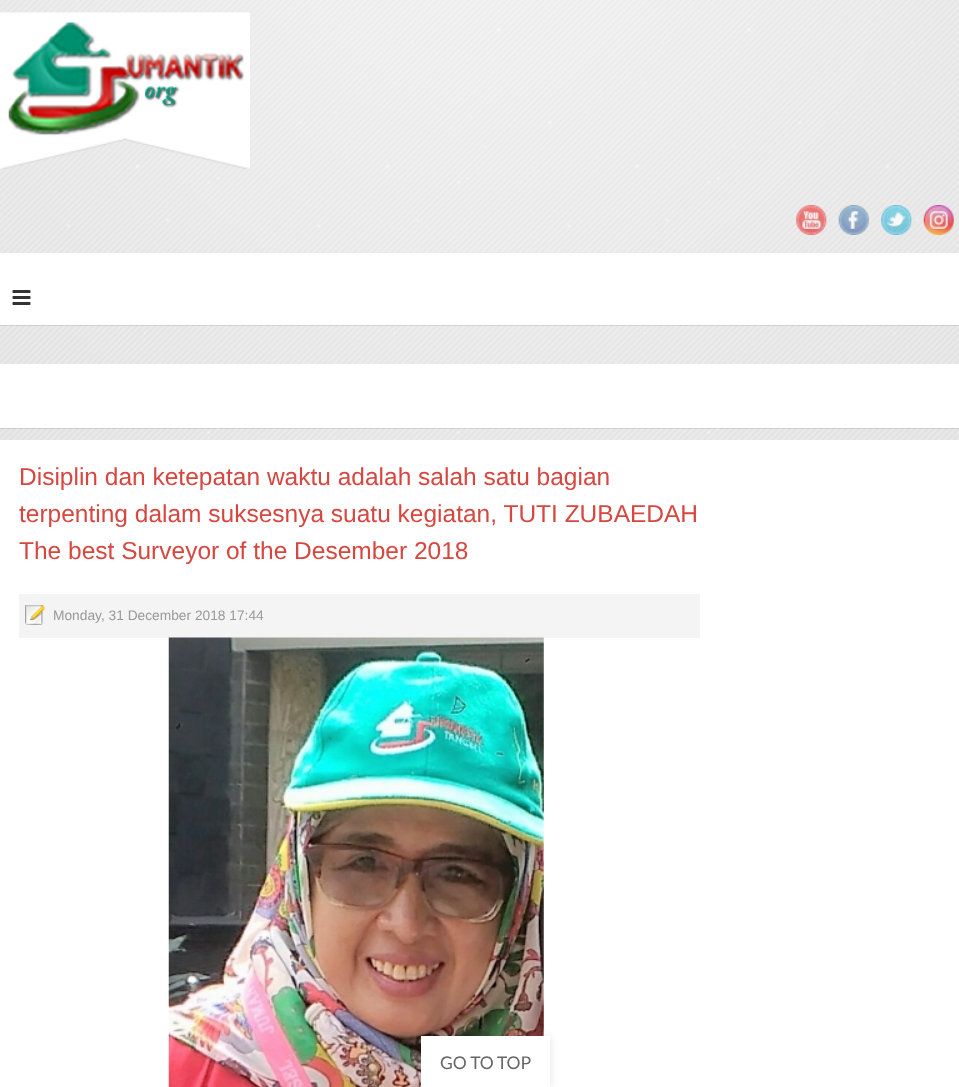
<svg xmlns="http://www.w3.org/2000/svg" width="959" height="1087">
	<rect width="100%" height="100%" fill="#FFFFFF" />
	<image x="0" y="0" width="959" height="440" href="assets/img1.png" />
	<image x="0" y="12" width="250" height="157" href="assets/img2.png" />
	<image x="796" y="205" width="31" height="30" href="assets/img3.png" />
	<image x="838" y="205" width="31" height="30" href="assets/img4.png" />
	<image x="881" y="205" width="31" height="30" href="assets/img5.png" />
	<image x="923" y="205" width="31" height="30" href="assets/img6.png" />
	<rect x="0" y="325" width="959" height="1" fill="#000000" fill-opacity="0.1" />
	<rect x="0" y="253" width="959" height="72" fill="#FFFFFF" />
	<image x="12" y="290" width="19" height="15" href="assets/img7.png" />
	<rect x="0" y="428" width="959" height="1" fill="#000000" fill-opacity="0.1" />
	<rect x="0" y="364" width="959" height="64" fill="#FFFFFF" />
	<g font-family="Liberation Sans" font-size="24.5" fill="#D64740">
		<text x="19" y="485">Disiplin dan ketepatan waktu adalah salah satu bagian</text>
		<text x="19" y="522">terpenting dalam suksesnya suatu kegiatan, TUTI ZUBAEDAH</text>
		<text x="19" y="559">The best Surveyor of the Desember 2018</text>
	</g>
	<rect x="19" y="594" width="681" height="44" fill="#F4F4F4" />
	<image x="25" y="605" width="20" height="20" href="assets/img8.png" />
	<text x="53" y="620" font-family="Liberation Sans" font-size="13.75" fill="#999999">Monday, 31 December 2018 17:44</text>
	<image x="168" y="637" width="376" height="450" href="assets/img9.png" />
	<rect x="421" y="1036" width="129" height="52" fill="#000000" fill-opacity="0.1" filter="blur(5px)" />
	<rect x="421" y="1036" width="129" height="51" fill="#FFFFFF" />
	<text x="440" y="1069" font-family="Lato" font-size="17.5" fill="#666666">GO TO TOP</text>
</svg>
